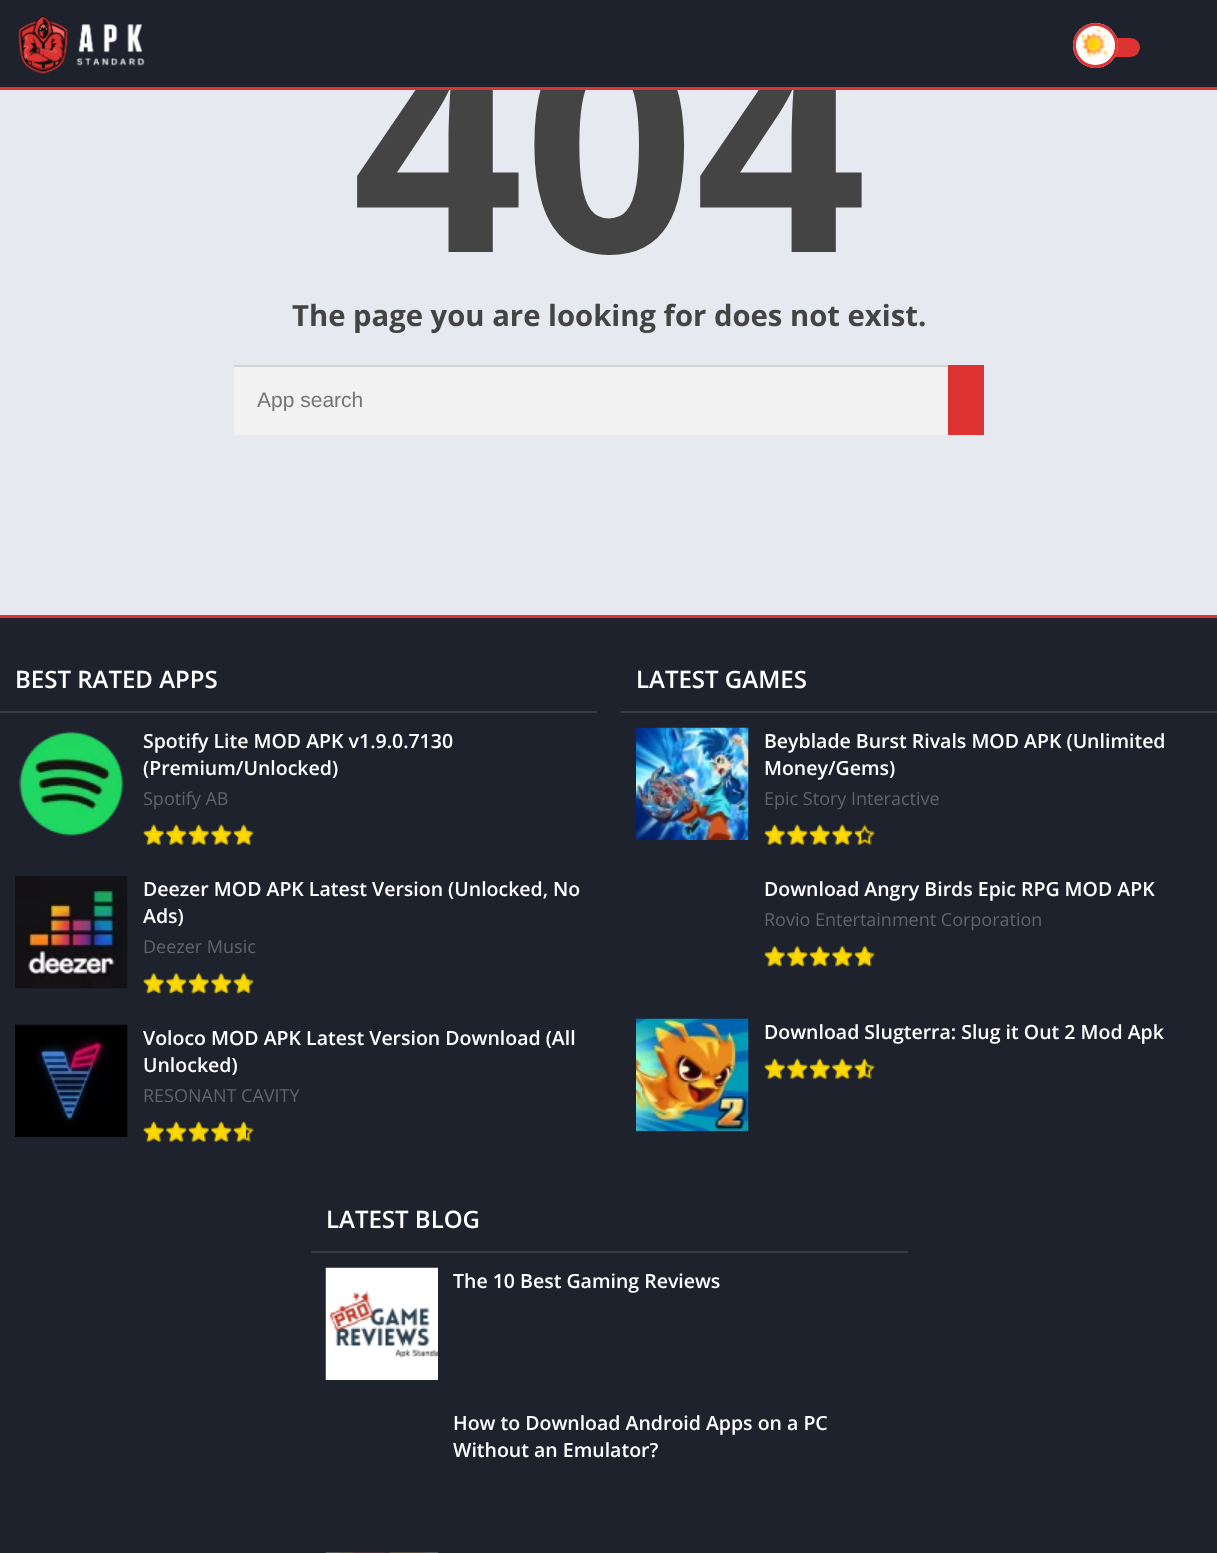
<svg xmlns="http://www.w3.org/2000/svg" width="1217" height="1553">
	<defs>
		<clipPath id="clip1"><rect x="257" y="387" width="669" height="24" /></clipPath>
	</defs>
	<rect width="100%" height="100%" fill="#E6E9EF" />
	<text x="352" y="252" font-family="Open Sans" font-size="300" font-weight="700" fill="#444444">404</text>
	<rect x="0" y="0" width="1217" height="87" fill="#1D222D" />
	<rect x="0" y="87" width="1217" height="3" fill="#DD3333" />
	<image x="18" y="16" width="127" height="58" href="assets/img1.png" />
	<rect x="1073" y="38" width="67" height="19" rx="9.5" fill="#DD3333" />
	<circle cx="1095.5" cy="45.5" r="22.5" fill="#FFFFFF" />
	<image x="1079" y="28" width="30" height="30" href="assets/img2.png" />
	<circle cx="1095.5" cy="45.5" r="21" fill="none" stroke="#DD3333" stroke-width="3" />
	<text x="292" y="326" font-family="Open Sans" font-size="29.25" font-weight="700" fill="#444444">The page you are looking for does not exist.</text>
	<rect x="234" y="367" width="714" height="68" fill="#F2F2F2" />
	<rect x="234" y="365" width="714" height="2" fill="#D4D4D4" />
	<g clip-path="url(#clip1)">
		<text x="257" y="407" font-family="Liberation Sans" font-size="21" fill="#757575">App search</text>
	</g>
	<rect x="948" y="365" width="36" height="70" fill="#DD3333" />
	<rect x="0" y="618" width="1217" height="935" fill="#1D222D" />
	<rect x="0" y="615" width="1217" height="3" fill="#DD3333" />
	<rect x="0" y="711" width="597" height="2" fill="#373B44" />
	<text x="15" y="688" font-family="Open Sans" font-size="24" font-weight="600" fill="#FFFFFF">BEST RATED APPS</text>
	<image x="19" y="731" width="105" height="105" href="assets/img3.png" />
	<g font-family="Open Sans" font-size="19.5" font-weight="600" fill="#FFFFFF">
		<text x="143" y="748">Spotify Lite MOD APK v1.9.0.7130</text>
		<text x="143" y="775">(Premium/Unlocked)</text>
	</g>
	<text x="143" y="805" font-family="Open Sans" font-size="18" fill="#61646C">Spotify AB</text>
	<image x="143" y="824" width="111" height="21" href="assets/img4.png" />
	<image x="143" y="824" width="108" height="21" href="assets/img5.png" />
	<image x="15" y="876" width="113" height="113" href="assets/img6.png" />
	<g font-family="Open Sans" font-size="19.5" font-weight="600" fill="#FFFFFF">
		<text x="143" y="896">Deezer MOD APK Latest Version (Unlocked, No</text>
		<text x="143" y="923">Ads)</text>
	</g>
	<text x="143" y="953" font-family="Open Sans" font-size="18" fill="#61646C">Deezer Music</text>
	<image x="143" y="973" width="111" height="21" href="assets/img7.png" />
	<image x="143" y="973" width="106" height="21" href="assets/img8.png" />
	<image x="15" y="1024" width="113" height="113" href="assets/img9.png" />
	<g font-family="Open Sans" font-size="19.5" font-weight="600" fill="#FFFFFF">
		<text x="143" y="1045">Voloco MOD APK Latest Version Download (All</text>
		<text x="143" y="1072">Unlocked)</text>
	</g>
	<text x="143" y="1102" font-family="Open Sans" font-size="18" fill="#61646C">RESONANT CAVITY</text>
	<image x="143" y="1121" width="111" height="21" href="assets/img10.png" />
	<image x="143" y="1121" width="103" height="21" href="assets/img11.png" />
	<rect x="621" y="711" width="596" height="2" fill="#373B44" />
	<text x="636" y="688" font-family="Open Sans" font-size="24" font-weight="600" fill="#FFFFFF">LATEST GAMES</text>
	<image x="636" y="727" width="113" height="113" href="assets/img12.png" />
	<g font-family="Open Sans" font-size="19.5" font-weight="600" fill="#FFFFFF">
		<text x="764" y="748">Beyblade Burst Rivals MOD APK (Unlimited</text>
		<text x="764" y="775">Money/Gems)</text>
	</g>
	<text x="764" y="805" font-family="Open Sans" font-size="18" fill="#61646C">Epic Story Interactive</text>
	<image x="764" y="824" width="111" height="21" href="assets/img13.png" />
	<image x="764" y="824" width="97" height="21" href="assets/img14.png" />
	<text x="764" y="896" font-family="Open Sans" font-size="19.5" font-weight="600" fill="#FFFFFF">Download Angry Birds Epic RPG MOD APK</text>
	<text x="764" y="926" font-family="Open Sans" font-size="18" fill="#61646C">Rovio Entertainment Corporation</text>
	<image x="764" y="946" width="111" height="21" href="assets/img15.png" />
	<image x="764" y="946" width="106" height="21" href="assets/img16.png" />
	<image x="636" y="1018" width="113" height="113" href="assets/img17.png" />
	<text x="764" y="1039" font-family="Open Sans" font-size="19.5" font-weight="600" fill="#FFFFFF">Download Slugterra: Slug it Out 2 Mod Apk</text>
	<image x="764" y="1058" width="111" height="21" href="assets/img18.png" />
	<image x="764" y="1058" width="102" height="21" href="assets/img19.png" />
	<rect x="311" y="1251" width="597" height="2" fill="#373B44" />
	<text x="326" y="1228" font-family="Open Sans" font-size="24" font-weight="600" fill="#FFFFFF">LATEST BLOG</text>
	<image x="325" y="1267" width="113" height="113" href="assets/img20.png" />
	<g font-family="Open Sans" font-size="19.5" font-weight="600" fill="#FFFFFF">
		<text x="453" y="1288">The 10 Best Gaming Reviews</text>
		<text x="453" y="1430">How to Download Android Apps on a PC</text>
		<text x="453" y="1457">Without an Emulator?</text>
	</g>
	<image x="325" y="1552" width="113" height="1" href="assets/img21.png" />
</svg>
